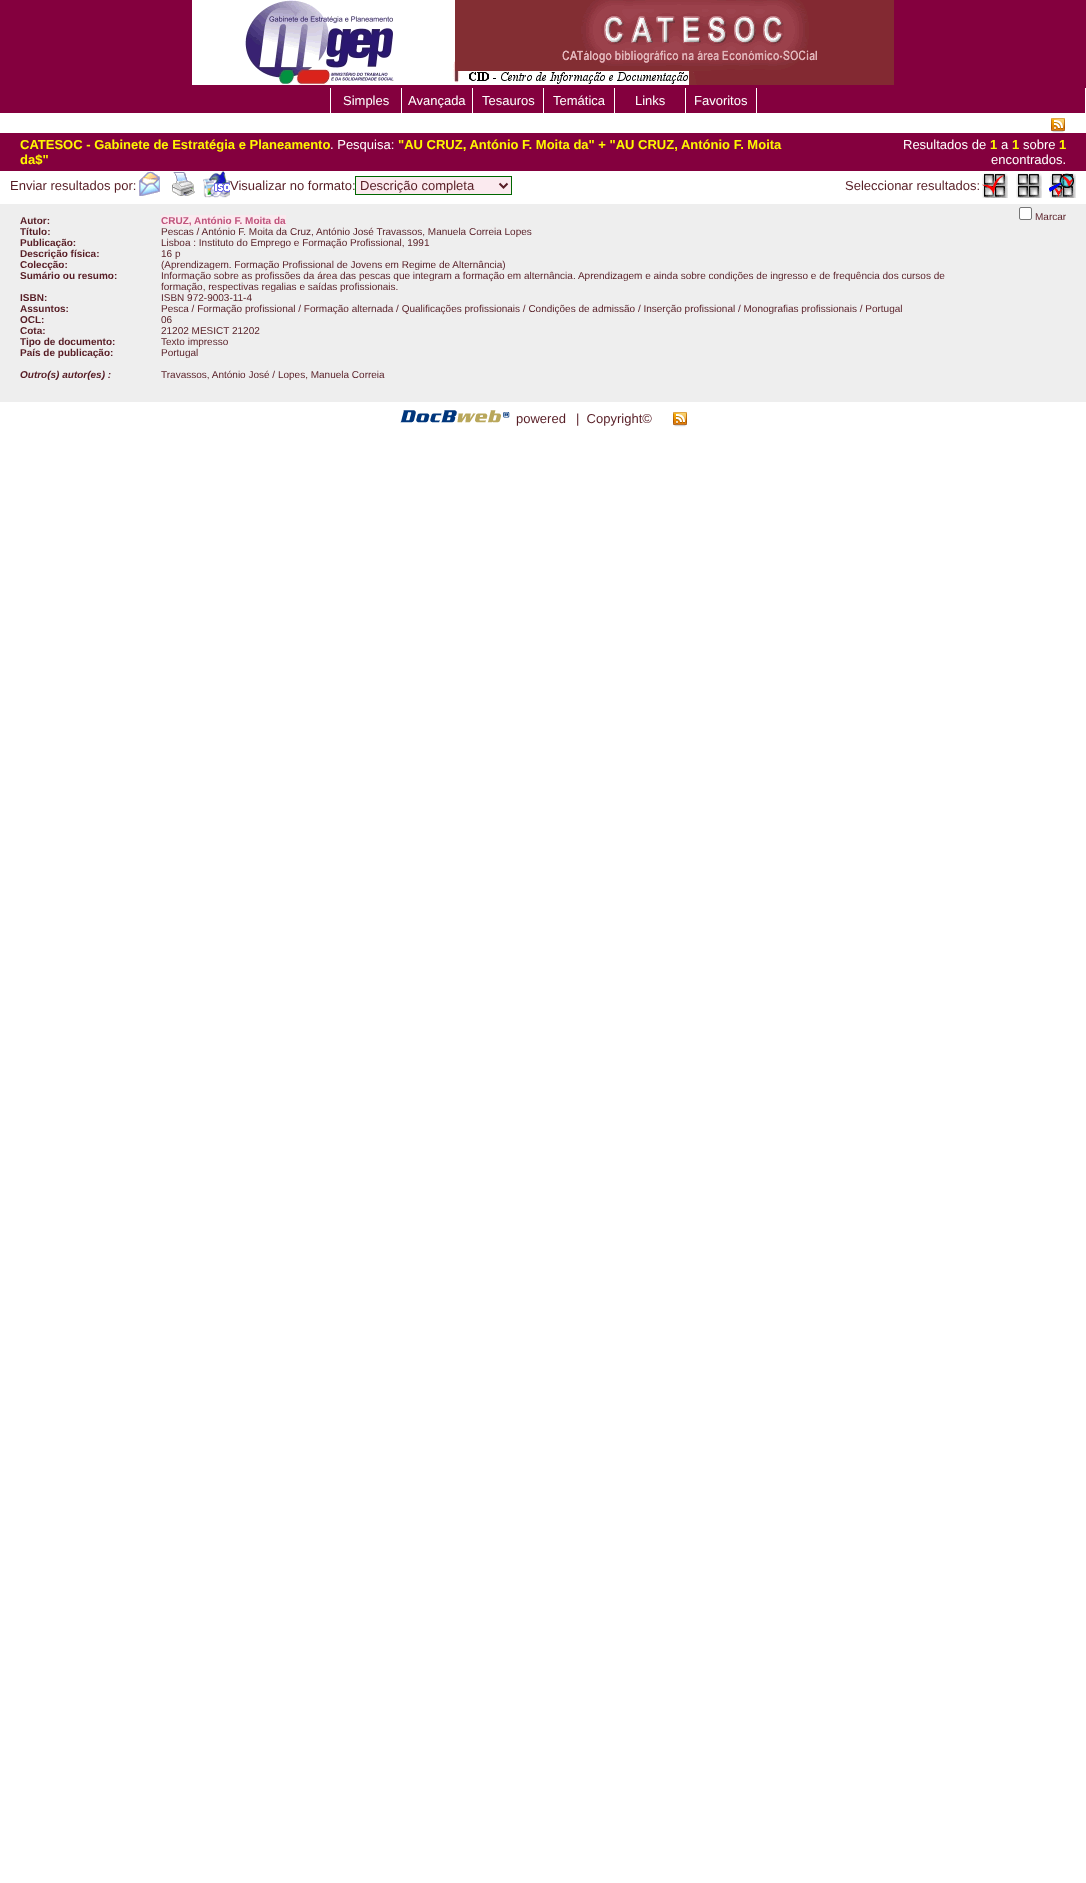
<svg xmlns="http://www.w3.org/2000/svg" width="1086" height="1883">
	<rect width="100%" height="100%" fill="#FFFFFF" />
	<rect x="0" y="0" width="1086" height="88" fill="#84003E" />
	<image x="192" y="0" width="702" height="85" href="assets/img1.png" />
	<rect x="0" y="88" width="330" height="25" fill="#84003E" />
	<rect x="331" y="88" width="70" height="25" fill="#84003E" />
	<text x="343" y="105" font-family="Liberation Sans" font-size="13" fill="#FFFFFF">Simples</text>
	<rect x="402" y="88" width="70" height="25" fill="#84003E" />
	<text x="408" y="105" font-family="Liberation Sans" font-size="13" fill="#FFFFFF">Avançada</text>
	<rect x="473" y="88" width="70" height="25" fill="#84003E" />
	<text x="482" y="105" font-family="Liberation Sans" font-size="13" fill="#FFFFFF">Tesauros</text>
	<rect x="544" y="88" width="70" height="25" fill="#84003E" />
	<text x="553" y="105" font-family="Liberation Sans" font-size="13" fill="#FFFFFF">Temática</text>
	<rect x="615" y="88" width="70" height="25" fill="#84003E" />
	<text x="635" y="105" font-family="Liberation Sans" font-size="13" fill="#FFFFFF">Links</text>
	<rect x="686" y="88" width="70" height="25" fill="#84003E" />
	<text x="694" y="105" font-family="Liberation Sans" font-size="13" fill="#FFFFFF">Favoritos</text>
	<rect x="757" y="88" width="328" height="25" fill="#84003E" />
	<image x="1051" y="118" width="14" height="15" href="assets/img2.png" />
	<rect x="0" y="133" width="1086" height="38" fill="#84003E" />
	<text x="20" y="149" font-family="Liberation Sans" font-size="13" font-weight="700" fill="#FFF700">CATESOC - Gabinete de Estratégia e Planeamento</text>
	<text x="330" y="149" font-family="Liberation Sans" font-size="13" fill="#FFFFFF">. Pesquisa:</text>
	<g font-family="Liberation Sans" font-size="13" font-weight="700" fill="#FFF700">
		<text x="398" y="149">"AU CRUZ, António F. Moita da" + "AU CRUZ, António F. Moita</text>
		<text x="20" y="164">da$"</text>
	</g>
	<text x="903" y="149" font-family="Liberation Sans" font-size="13" fill="#FFFFFF">Resultados de</text>
	<text x="990" y="149" font-family="Liberation Sans" font-size="13" font-weight="700" fill="#FFF700">1</text>
	<text x="1001" y="149" font-family="Liberation Sans" font-size="13" fill="#FFFFFF">a</text>
	<text x="1012" y="149" font-family="Liberation Sans" font-size="13" font-weight="700" fill="#FFF700">1</text>
	<text x="1023" y="149" font-family="Liberation Sans" font-size="13" fill="#FFFFFF">sobre</text>
	<text x="1059" y="149" font-family="Liberation Sans" font-size="13" font-weight="700" fill="#FFF700">1</text>
	<text x="991" y="164" font-family="Liberation Sans" font-size="13" fill="#FFFFFF">encontrados.</text>
	<text x="10" y="190" font-family="Liberation Sans" font-size="13" fill="#571D25">Enviar resultados por:</text>
	<image x="138" y="171" width="22" height="25" href="assets/img3.png" />
	<image x="172" y="172" width="23" height="24" href="assets/img4.png" />
	<image x="203" y="171" width="27" height="27" href="assets/img5.png" />
	<text x="230" y="190" font-family="Liberation Sans" font-size="13" fill="#571D25">Visualizar no formato:</text>
	<rect x="355.5" y="176.5" width="156" height="18" fill="#FBEAEF" stroke="#006700" />
	<path d="M499.5 183.5L503.5 187.5L507.5 183.5" fill="none" stroke="#571D25" stroke-width="2" />
	<g font-family="Liberation Sans" font-size="13" fill="#571D25">
		<text x="360" y="190">Descrição completa</text>
		<text x="845" y="190">Seleccionar resultados:</text>
	</g>
	<image x="982" y="173" width="26" height="25" href="assets/img6.png" />
	<image x="1016" y="173" width="26" height="25" href="assets/img7.png" />
	<image x="1049" y="173" width="27" height="25" href="assets/img8.png" />
	<rect x="0" y="204" width="1086" height="198" fill="#EEEEEE" />
	<text x="20" y="224" font-family="Liberation Sans" font-size="10" font-weight="700" fill="#571D25">Autor:</text>
	<rect x="161" y="215" width="125" height="11" fill="#FBEAEF" />
	<text x="161" y="224" font-family="Liberation Sans" font-size="10" font-weight="700" fill="#BF557D">CRUZ, António F. Moita da</text>
	<text x="20" y="235" font-family="Liberation Sans" font-size="10" font-weight="700" fill="#571D25">Título:</text>
	<text x="161" y="235" font-family="Liberation Sans" font-size="10" fill="#571D25">Pescas / António F. Moita da Cruz, António José Travassos, Manuela Correia Lopes</text>
	<text x="20" y="246" font-family="Liberation Sans" font-size="10" font-weight="700" fill="#571D25">Publicação:</text>
	<text x="161" y="246" font-family="Liberation Sans" font-size="10" fill="#571D25">Lisboa : Instituto do Emprego e Formação Profissional, 1991</text>
	<text x="20" y="257" font-family="Liberation Sans" font-size="10" font-weight="700" fill="#571D25">Descrição física:</text>
	<text x="161" y="257" font-family="Liberation Sans" font-size="10" fill="#571D25">16 p</text>
	<text x="20" y="268" font-family="Liberation Sans" font-size="10" font-weight="700" fill="#571D25">Colecção:</text>
	<text x="161" y="268" font-family="Liberation Sans" font-size="10" fill="#571D25">(Aprendizagem. Formação Profissional de Jovens em Regime de Alternância)</text>
	<text x="20" y="279" font-family="Liberation Sans" font-size="10" font-weight="700" fill="#571D25">Sumário ou resumo:</text>
	<g font-family="Liberation Sans" font-size="10" fill="#571D25">
		<text x="161" y="279">Informação sobre as profissões da área das pescas que integram a formação em alternância. Aprendizagem e ainda sobre condições de ingresso e de frequência dos cursos de</text>
		<text x="161" y="290">formação, respectivas regalias e saídas profissionais.</text>
	</g>
	<text x="20" y="301" font-family="Liberation Sans" font-size="10" font-weight="700" fill="#571D25">ISBN:</text>
	<text x="161" y="301" font-family="Liberation Sans" font-size="10" fill="#571D25">ISBN 972-9003-11-4</text>
	<text x="20" y="312" font-family="Liberation Sans" font-size="10" font-weight="700" fill="#571D25">Assuntos:</text>
	<text x="161" y="312" font-family="Liberation Sans" font-size="10" fill="#571D25">Pesca / Formação profissional / Formação alternada / Qualificações profissionais / Condições de admissão / Inserção profissional / Monografias profissionais / Portugal</text>
	<text x="20" y="323" font-family="Liberation Sans" font-size="10" font-weight="700" fill="#571D25">OCL:</text>
	<text x="161" y="323" font-family="Liberation Sans" font-size="10" fill="#571D25">06</text>
	<text x="20" y="334" font-family="Liberation Sans" font-size="10" font-weight="700" fill="#571D25">Cota:</text>
	<text x="161" y="334" font-family="Liberation Sans" font-size="10" fill="#571D25">21202 MESICT 21202</text>
	<text x="20" y="345" font-family="Liberation Sans" font-size="10" font-weight="700" fill="#571D25">Tipo de documento:</text>
	<text x="161" y="345" font-family="Liberation Sans" font-size="10" fill="#571D25">Texto impresso</text>
	<text x="20" y="356" font-family="Liberation Sans" font-size="10" font-weight="700" fill="#571D25">País de publicação:</text>
	<text x="161" y="356" font-family="Liberation Sans" font-size="10" fill="#571D25">Portugal</text>
	<text x="20" y="378" font-family="Liberation Sans" font-size="10" font-weight="700" font-style="italic" fill="#571D25">Outro(s) autor(es) :</text>
	<text x="161" y="378" font-family="Liberation Sans" font-size="10" fill="#571D25">Travassos, António José / Lopes, Manuela Correia</text>
	<rect x="1019.5" y="207.5" width="12" height="12" rx="1.5" fill="#FFFFFF" stroke="#767676" />
	<text x="1035" y="220" font-family="Liberation Sans" font-size="10" fill="#571D25">Marcar</text>
	<image x="400" y="410" width="110" height="13" href="assets/img9.png" />
	<g font-family="Liberation Sans" font-size="13" fill="#571D25">
		<text x="516" y="423">powered</text>
		<text x="576" y="423" xml:space="preserve">|  Copyright©</text>
	</g>
	<image x="673" y="412" width="14" height="15" href="assets/img2.png" />
</svg>
